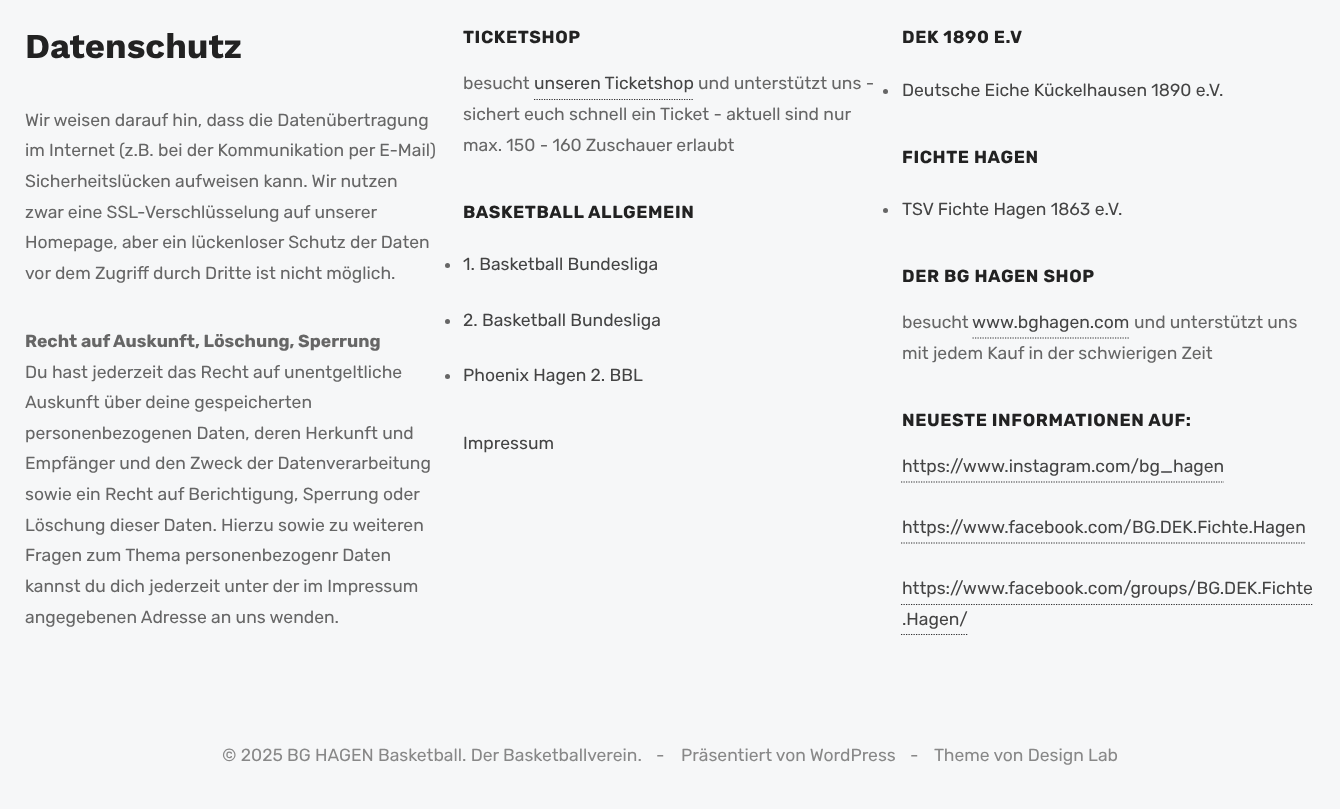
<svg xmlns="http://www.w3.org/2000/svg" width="1340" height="809">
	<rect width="100%" height="100%" fill="#F6F7F8" />
	<text x="25" y="58" font-family="Work Sans" font-size="35" font-weight="700" fill="#222222">Datenschutz</text>
	<g font-family="Rubik" font-size="17.5" fill="#666666">
		<text x="25" y="126">Wir weisen darauf hin, dass die Datenübertragung</text>
		<text x="25" y="156">im Internet (z.B. bei der Kommunikation per E-Mail)</text>
		<text x="25" y="187">Sicherheitslücken aufweisen kann. Wir nutzen</text>
		<text x="25" y="218">zwar eine SSL-Verschlüsselung auf unserer</text>
		<text x="25" y="248">Homepage, aber ein lückenloser Schutz der Daten</text>
		<text x="25" y="279">vor dem Zugriff durch Dritte ist nicht möglich.</text>
	</g>
	<text x="25" y="347" font-family="Rubik" font-size="17.5" font-weight="700" fill="#666666">Recht auf Auskunft, Löschung, Sperrung</text>
	<g font-family="Rubik" font-size="17.5" fill="#666666">
		<text x="25" y="378">Du hast jederzeit das Recht auf unentgeltliche</text>
		<text x="25" y="408">Auskunft über deine gespeicherten</text>
		<text x="25" y="439">personenbezogenen Daten, deren Herkunft und</text>
		<text x="25" y="469">Empfänger und den Zweck der Datenverarbeitung</text>
		<text x="25" y="500">sowie ein Recht auf Berichtigung, Sperrung oder</text>
		<text x="25" y="531">Löschung dieser Daten. Hierzu sowie zu weiteren</text>
		<text x="25" y="561">Fragen zum Thema personenbezogenr Daten</text>
		<text x="25" y="592">kannst du dich jederzeit unter der im Impressum</text>
		<text x="25" y="623">angegebenen Adresse an uns wenden.</text>
	</g>
	<text x="463" y="43" font-family="Rubik" font-size="17.5" font-weight="700" letter-spacing="0.6" fill="#222222">TICKETSHOP</text>
	<text x="463" y="89" font-family="Rubik" font-size="17.5" fill="#666666">besucht</text>
	<text x="534" y="89" font-family="Rubik" font-size="17.5" fill="#444444">unseren Ticketshop</text>
	<path d="M534 99.5H694" fill="none" stroke="#313132" stroke-width="1.2" stroke-dasharray="1.25 1.25" />
	<g font-family="Rubik" font-size="17.5" fill="#666666">
		<text x="698" y="89">und unterstützt uns -</text>
		<text x="463" y="120">sichert euch schnell ein Ticket - aktuell sind nur</text>
		<text x="463" y="151">max. 150 - 160 Zuschauer erlaubt</text>
	</g>
	<text x="463" y="218" font-family="Rubik" font-size="17.5" font-weight="700" letter-spacing="0.6" fill="#222222">BASKETBALL ALLGEMEIN</text>
	<circle cx="447.5" cy="265.5" r="2.5" fill="#666666" />
	<text x="463" y="270" font-family="Rubik" font-size="17.5" fill="#444444">1. Basketball Bundesliga</text>
	<circle cx="447.5" cy="321.5" r="2.5" fill="#666666" />
	<text x="463" y="326" font-family="Rubik" font-size="17.5" fill="#444444">2. Basketball Bundesliga</text>
	<circle cx="447.5" cy="376.5" r="2.5" fill="#666666" />
	<g font-family="Rubik" font-size="17.5" fill="#444444">
		<text x="463" y="381">Phoenix Hagen 2. BBL</text>
		<text x="463" y="449">Impressum</text>
	</g>
	<text x="902" y="43" font-family="Rubik" font-size="17.5" font-weight="700" letter-spacing="0.6" fill="#222222">DEK 1890 E.V</text>
	<circle cx="885.5" cy="91.5" r="2.5" fill="#666666" />
	<text x="902" y="96" font-family="Rubik" font-size="17.5" fill="#444444">Deutsche Eiche Kückelhausen 1890 e.V.</text>
	<text x="902" y="163" font-family="Rubik" font-size="17.5" font-weight="700" letter-spacing="0.6" fill="#222222">FICHTE HAGEN</text>
	<circle cx="885.5" cy="210.5" r="2.5" fill="#666666" />
	<text x="902" y="215" font-family="Rubik" font-size="17.5" fill="#444444">TSV Fichte Hagen 1863 e.V.</text>
	<text x="902" y="282" font-family="Rubik" font-size="17.5" font-weight="700" letter-spacing="0.6" fill="#222222">DER BG HAGEN SHOP</text>
	<text x="902" y="328" font-family="Rubik" font-size="17.5" fill="#666666">besucht</text>
	<text x="972" y="328" font-family="Rubik" font-size="17.5" fill="#444444">www.bghagen.com</text>
	<path d="M972.5 338H1130" fill="none" stroke="#313132" stroke-width="1.2" stroke-dasharray="1.25 1.25" />
	<g font-family="Rubik" font-size="17.5" fill="#666666">
		<text x="1134" y="328">und unterstützt uns</text>
		<text x="902" y="359">mit jedem Kauf in der schwierigen Zeit</text>
	</g>
	<text x="902" y="426" font-family="Rubik" font-size="17.5" font-weight="700" letter-spacing="0.6" fill="#222222">NEUESTE INFORMATIONEN AUF:</text>
	<text x="902" y="472" font-family="Rubik" font-size="17.5" fill="#444444">https://www.instagram.com/bg_hagen</text>
	<path d="M901 482H1224" fill="none" stroke="#313132" stroke-width="1.2" stroke-dasharray="1.25 1.25" />
	<text x="902" y="533" font-family="Rubik" font-size="17.5" fill="#444444">https://www.facebook.com/BG.DEK.Fichte.Hagen</text>
	<path d="M901 543H1305" fill="none" stroke="#313132" stroke-width="1.2" stroke-dasharray="1.25 1.25" />
	<text x="902" y="594" font-family="Rubik" font-size="17.5" fill="#444444">https://www.facebook.com/groups/BG.DEK.Fichte</text>
	<path d="M901 604.5H1312.5" fill="none" stroke="#313132" stroke-width="1.2" stroke-dasharray="1.25 1.25" />
	<text x="902" y="625" font-family="Rubik" font-size="17.5" fill="#444444">.Hagen/</text>
	<path d="M901 634.5H967.5" fill="none" stroke="#313132" stroke-width="1.2" stroke-dasharray="1.25 1.25" />
	<g font-family="Rubik" font-size="17.5" fill="#888888">
		<text x="222" y="761">© 2025 BG HAGEN Basketball. Der Basketballverein.</text>
		<text x="656" y="761">-</text>
		<text x="681" y="761">Präsentiert von WordPress</text>
		<text x="910" y="761">-</text>
		<text x="934" y="761">Theme von Design Lab</text>
	</g>
</svg>
